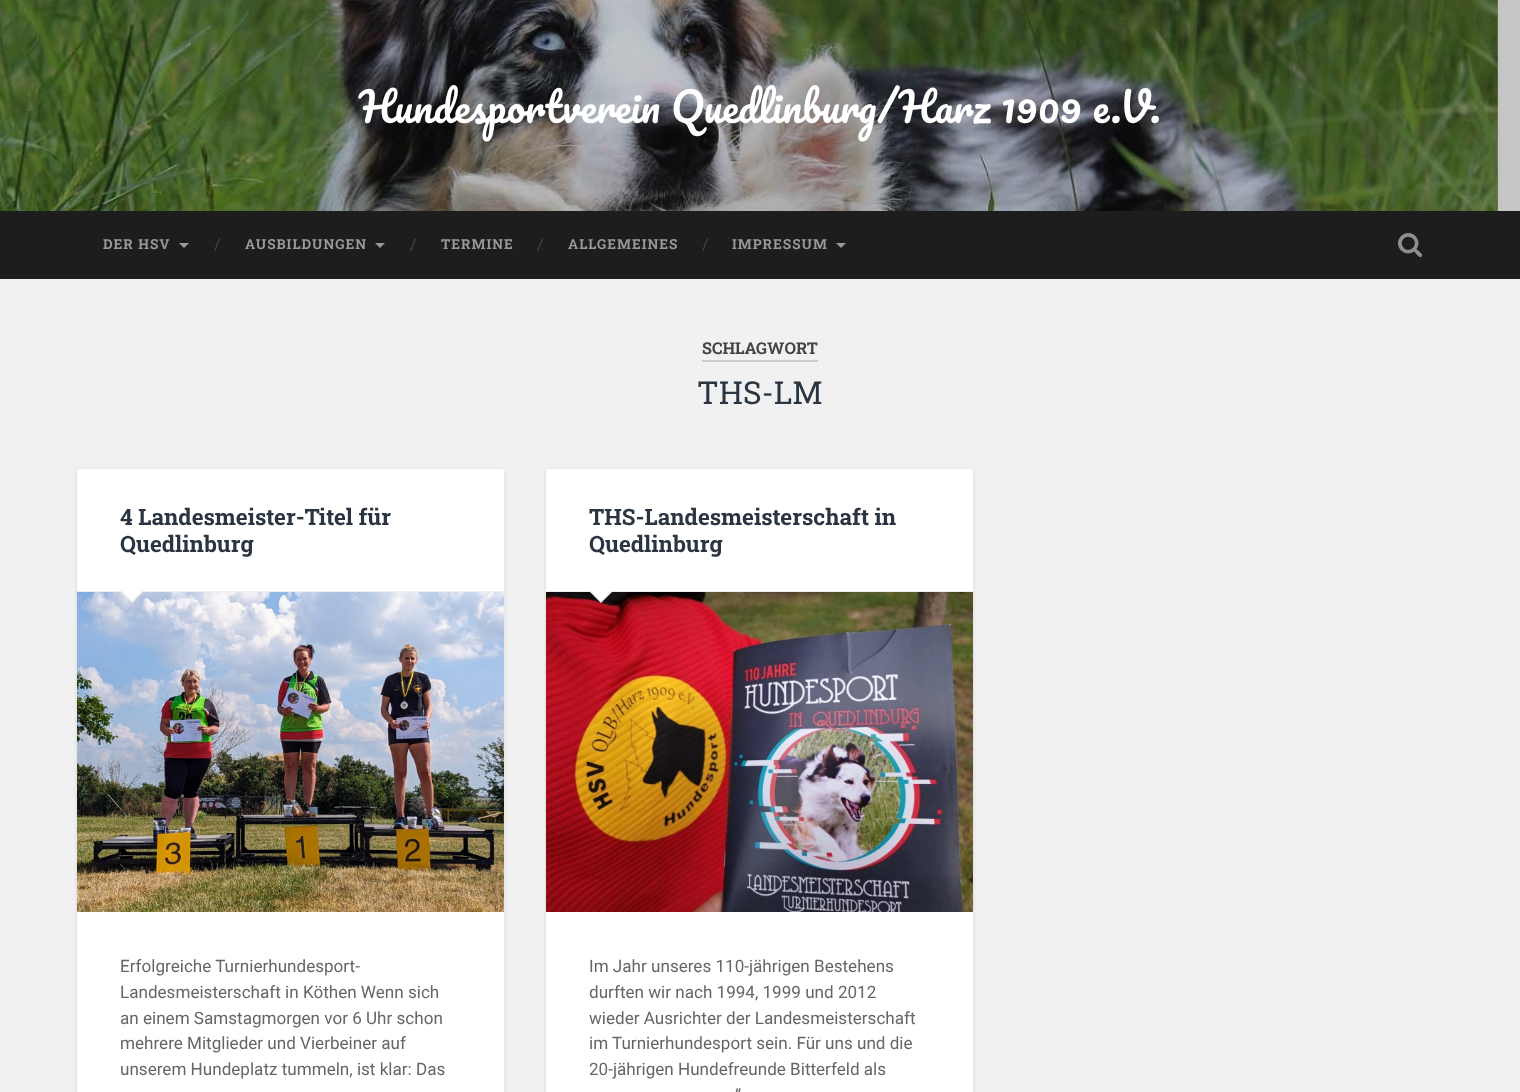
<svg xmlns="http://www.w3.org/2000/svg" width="1520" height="1092">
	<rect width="100%" height="100%" fill="#F1F1F1" />
	<image x="0" y="0" width="1520" height="211" href="assets/img1.png" />
	<text x="359" y="123" font-family="Pacifico" font-size="40.5" fill="#FFFFFF">Hundesportverein Quedlinburg/Harz 1909 e.V.</text>
	<rect x="0" y="211" width="1520" height="68" fill="#1D1D1D" />
	<text x="103" y="249" font-family="Roboto Slab" font-size="13.75" font-weight="700" letter-spacing="1" fill="#999999">DER HSV</text>
	<path d="M179 243H189L184 248Z" fill="#999999" />
	<text x="214" y="250" font-family="Roboto Slab" font-size="16" fill="#444444">/</text>
	<text x="245" y="249" font-family="Roboto Slab" font-size="13.75" font-weight="700" letter-spacing="1" fill="#999999">AUSBILDUNGEN</text>
	<path d="M375 243H385L380 248Z" fill="#999999" />
	<text x="410" y="250" font-family="Roboto Slab" font-size="16" fill="#444444">/</text>
	<text x="441" y="249" font-family="Roboto Slab" font-size="13.75" font-weight="700" letter-spacing="1" fill="#999999">TERMINE</text>
	<text x="537" y="250" font-family="Roboto Slab" font-size="16" fill="#444444">/</text>
	<text x="568" y="249" font-family="Roboto Slab" font-size="13.75" font-weight="700" letter-spacing="1" fill="#999999">ALLGEMEINES</text>
	<text x="702" y="250" font-family="Roboto Slab" font-size="16" fill="#444444">/</text>
	<text x="732" y="249" font-family="Roboto Slab" font-size="13.75" font-weight="700" letter-spacing="1" fill="#999999">IMPRESSUM</text>
	<path d="M836 243H846L841 248Z" fill="#999999" />
	<image x="1398" y="233" width="24" height="24" href="assets/img2.png" />
	<rect x="702" y="360" width="116" height="2" fill="#CCCCCC" />
	<text x="702" y="354" font-family="Roboto Slab" font-size="16.25" font-weight="700" fill="#444444">SCHLAGWORT</text>
	<text x="697" y="404" font-family="Roboto Slab" font-size="31.5" fill="#2B3542">THS-LM</text>
	<rect x="77" y="470" width="427" height="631" rx="3" fill="#000000" fill-opacity="0.1" filter="blur(2px)" />
	<rect x="77" y="469" width="427" height="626" rx="3" fill="#FFFFFF" />
	<rect x="77" y="591" width="427" height="1" fill="#EEEEEE" />
	<g font-family="Roboto Slab" font-size="22.5" font-weight="700" fill="#2B3542">
		<text x="120" y="525">4 Landesmeister-Titel für</text>
		<text x="120" y="552">Quedlinburg</text>
	</g>
	<image x="77" y="592" width="427" height="320" href="assets/img3.png" />
	<path d="M120 591H144L132 603Z" fill="#EEEEEE" />
	<path d="M121 590H143L132 601Z" fill="#FFFFFF" />
	<g font-family="Roboto" font-size="17.1" fill="#666666">
		<text x="120" y="972">Erfolgreiche Turnierhundesport-</text>
		<text x="120" y="998">Landesmeisterschaft in Köthen Wenn sich</text>
		<text x="120" y="1024">an einem Samstagmorgen vor 6 Uhr schon</text>
		<text x="120" y="1049">mehrere Mitglieder und Vierbeiner auf</text>
		<text x="120" y="1075">unserem Hundeplatz tummeln, ist klar: Das</text>
	</g>
	<rect x="546" y="470" width="427" height="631" rx="3" fill="#000000" fill-opacity="0.1" filter="blur(2px)" />
	<rect x="546" y="469" width="427" height="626" rx="3" fill="#FFFFFF" />
	<rect x="546" y="591" width="427" height="1" fill="#EEEEEE" />
	<g font-family="Roboto Slab" font-size="22.5" font-weight="700" fill="#2B3542">
		<text x="589" y="525">THS-Landesmeisterschaft in</text>
		<text x="589" y="552">Quedlinburg</text>
	</g>
	<image x="546" y="592" width="427" height="320" href="assets/img4.png" />
	<path d="M589 591H613L601 603Z" fill="#EEEEEE" />
	<path d="M590 590H612L601 601Z" fill="#FFFFFF" />
	<g font-family="Roboto" font-size="17.1" fill="#666666">
		<text x="589" y="972">Im Jahr unseres 110-jährigen Bestehens</text>
		<text x="589" y="998">durften wir nach 1994, 1999 und 2012</text>
		<text x="589" y="1024">wieder Ausrichter der Landesmeisterschaft</text>
		<text x="589" y="1049">im Turnierhundesport sein. Für uns und die</text>
		<text x="589" y="1075">20-jährigen Hundefreunde Bitterfeld als</text>
		<text x="735" y="1101">“</text>
	</g>
</svg>
